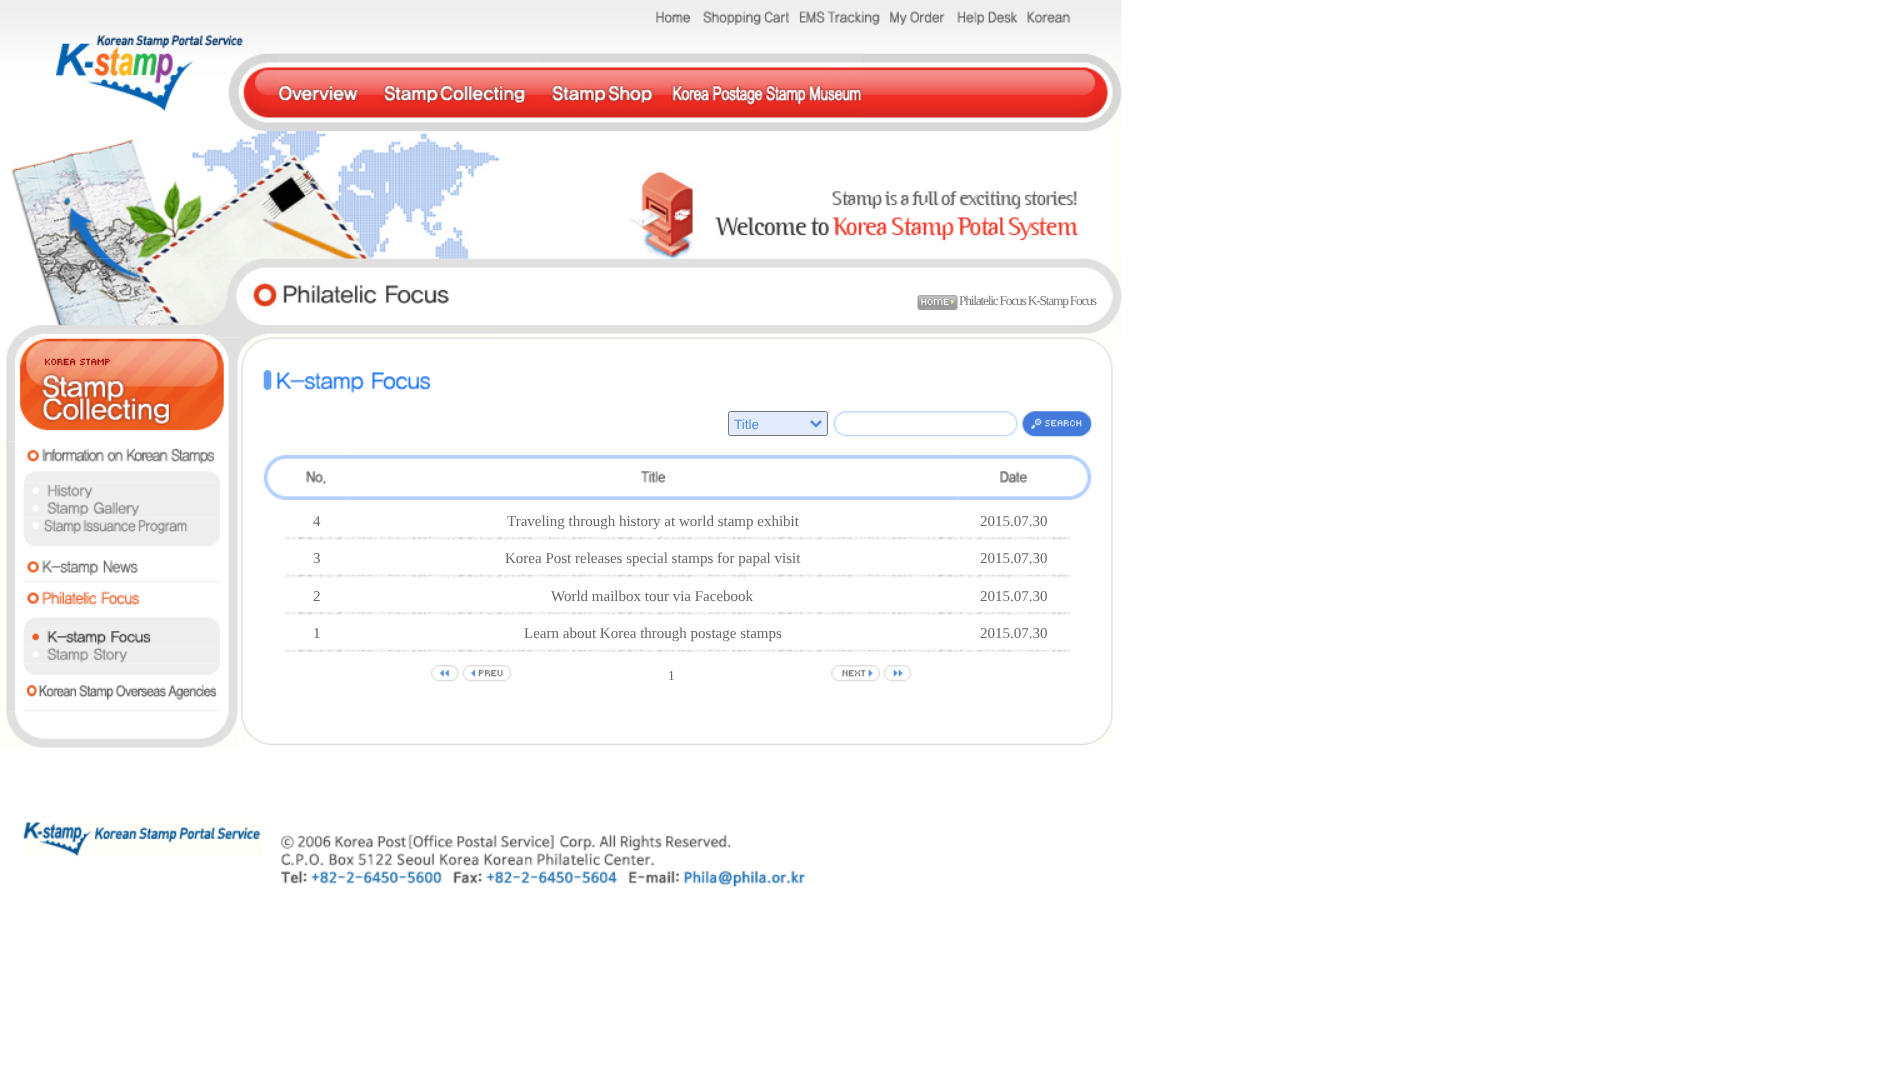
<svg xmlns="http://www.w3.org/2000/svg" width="1898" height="1072">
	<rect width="100%" height="100%" fill="#FFFFFF" />
	<image x="0" y="0" width="1122" height="132" href="assets/img1.png" />
	<image x="656" y="11" width="34" height="13" href="assets/img2.png" />
	<image x="703" y="11" width="86" height="15" href="assets/img3.png" />
	<image x="799" y="11" width="81" height="15" href="assets/img4.png" />
	<image x="889" y="11" width="56" height="15" href="assets/img5.png" />
	<image x="957" y="11" width="61" height="15" href="assets/img6.png" />
	<image x="1027" y="11" width="44" height="13" href="assets/img7.png" />
	<image x="54" y="35" width="205" height="82" href="assets/img8.png" />
	<image x="277" y="53" width="94" height="79" href="assets/img9.png" />
	<image x="371" y="53" width="171" height="79" href="assets/img10.png" />
	<image x="543" y="53" width="128" height="79" href="assets/img11.png" />
	<image x="671" y="53" width="192" height="79" href="assets/img12.png" />
	<image x="11" y="131" width="1110" height="128" href="assets/img13.png" />
	<image x="714" y="191" width="364" height="50" href="assets/img14.png" />
	<image x="16" y="258" width="1106" height="80" href="assets/img15.png" />
	<image x="253" y="283" width="24" height="24" href="assets/img16.png" />
	<image x="283" y="284" width="166" height="20" href="assets/img17.png" />
	<image x="917" y="295" width="41" height="15" href="assets/img18.png" />
	<text x="959" y="305" font-family="Liberation Serif" font-size="13.5" letter-spacing="-1.25" fill="#797979">Philatelic Focus K-Stamp Focus</text>
	<image x="6" y="337" width="236" height="105" href="assets/img19.png" />
	<image x="0" y="441" width="238" height="271" href="assets/img20.png" />
	<image x="27" y="448" width="188" height="16" href="assets/img21.png" />
	<image x="24" y="471" width="196" height="12" href="assets/img22.png" />
	<image x="23" y="482" width="197" height="18" href="assets/img23.png" />
	<image x="23" y="500" width="197" height="18" href="assets/img24.png" />
	<image x="23" y="517" width="197" height="18" href="assets/img25.png" />
	<image x="23" y="535" width="197" height="12" href="assets/img26.png" />
	<rect x="24" y="581" width="196" height="1" fill="#EBEBEB" />
	<image x="24" y="559" width="196" height="23" href="assets/img27.png" />
	<image x="27" y="591" width="113" height="15" href="assets/img28.png" />
	<image x="24" y="617" width="196" height="12" href="assets/img29.png" />
	<image x="23" y="629" width="197" height="18" href="assets/img30.png" />
	<image x="23" y="646" width="197" height="18" href="assets/img31.png" />
	<image x="23" y="664" width="197" height="11" href="assets/img32.png" />
	<rect x="24" y="710" width="196" height="1" fill="#EBEBEB" />
	<image x="26" y="684" width="191" height="17" href="assets/img33.png" />
	<image x="0" y="711" width="238" height="37" href="assets/img34.png" />
	<image x="241" y="333" width="872" height="35" href="assets/img35.png" />
	<image x="241" y="367" width="872" height="345" href="assets/img36.png" />
	<image x="263" y="369" width="167" height="24" href="assets/img37.png" />
	<rect x="728.5" y="411.5" width="99" height="24" rx="2" fill="#E3ECFF" stroke="#767676" />
	<path d="M811 421L816 426L821 421" fill="none" stroke="#518BDC" stroke-width="2.5" />
	<text x="734" y="429" font-family="Liberation Sans" font-size="13.5" fill="#518BDC">Title</text>
	<image x="833" y="411" width="185" height="26" href="assets/img38.png" />
	<rect x="846" y="434" width="159" height="1" fill="#FFFFFF" />
	<image x="1022" y="411" width="70" height="26" href="assets/img39.png" />
	<image x="263" y="455" width="22" height="45" href="assets/img40.png" />
	<image x="285" y="455" width="63" height="45" href="assets/img41.png" />
	<image x="306" y="471" width="21" height="13" href="assets/img42.png" />
	<image x="347" y="455" width="611" height="45" href="assets/img43.png" />
	<image x="641" y="471" width="24" height="12" href="assets/img44.png" />
	<image x="957" y="455" width="113" height="45" href="assets/img45.png" />
	<image x="1000" y="471" width="28" height="12" href="assets/img46.png" />
	<image x="1070" y="455" width="22" height="45" href="assets/img47.png" />
	<g font-family="Liberation Serif" font-size="15" fill="#666666">
		<text x="313" y="526">4</text>
		<text x="507" y="526">Traveling through history at world stamp exhibit</text>
		<text x="980" y="526">2015.07.30</text>
	</g>
	<image x="285" y="536" width="785" height="4" href="assets/img48.png" />
	<g font-family="Liberation Serif" font-size="15" fill="#666666">
		<text x="313" y="563">3</text>
		<text x="505" y="563">Korea Post releases special stamps for papal visit</text>
		<text x="980" y="563">2015.07.30</text>
	</g>
	<image x="285" y="573" width="786" height="5" href="assets/img49.png" />
	<g font-family="Liberation Serif" font-size="15" fill="#666666">
		<text x="313" y="601">2</text>
		<text x="551" y="601">World mailbox tour via Facebook</text>
		<text x="980" y="601">2015.07.30</text>
	</g>
	<image x="285" y="611" width="785" height="4" href="assets/img48.png" />
	<g font-family="Liberation Serif" font-size="15" fill="#666666">
		<text x="313" y="638">1</text>
		<text x="524" y="638">Learn about Korea through postage stamps</text>
		<text x="980" y="638">2015.07.30</text>
	</g>
	<image x="285" y="648" width="786" height="5" href="assets/img49.png" />
	<image x="431" y="665" width="28" height="17" href="assets/img50.png" />
	<image x="462" y="665" width="50" height="17" href="assets/img51.png" />
	<text x="668" y="680" font-family="Liberation Serif" font-size="13.5" fill="#666666">1</text>
	<image x="831" y="665" width="49" height="17" href="assets/img52.png" />
	<image x="883" y="665" width="29" height="17" href="assets/img53.png" />
	<image x="241" y="711" width="872" height="34" href="assets/img54.png" />
	<image x="23" y="822" width="238" height="35" href="assets/img55.png" />
	<image x="281" y="834" width="525" height="53" href="assets/img56.png" />
</svg>
